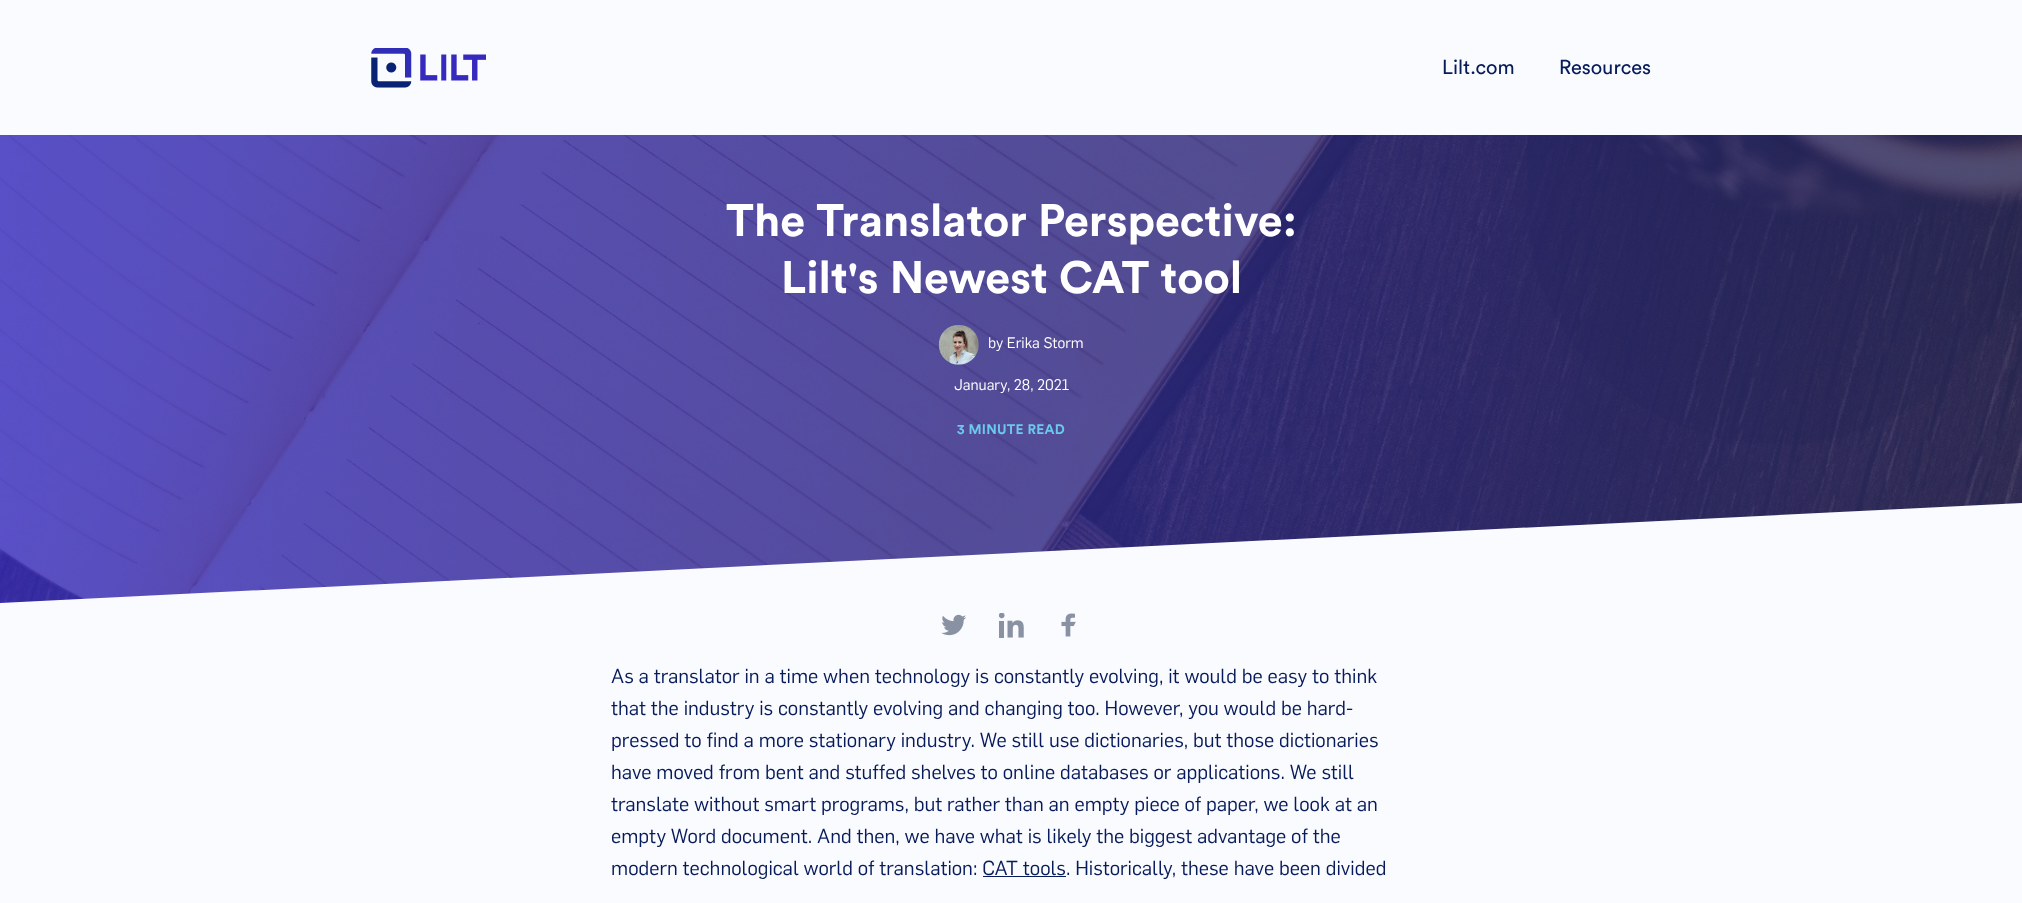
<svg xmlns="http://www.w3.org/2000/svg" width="2022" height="903">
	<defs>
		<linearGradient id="g1" gradientUnits="userSpaceOnUse" x1="0" y1="340" x2="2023" y2="340"><stop offset="0" stop-color="#3529BE" /><stop offset="1" stop-color="#2A295C" /></linearGradient>
	</defs>
	<rect width="100%" height="100%" fill="#FAFBFF" />
	<image x="371" y="48" width="115" height="40" href="assets/img1.png" />
	<g font-family="Circular" font-size="20" fill="#071B5A">
		<text x="1442" y="74">Lilt.com</text>
		<text x="1559" y="74">Resources</text>
	</g>
	<rect x="0" y="135" width="2022" height="468" fill="url(#g1)" />
	<image x="0" y="135" width="2022" height="468" href="assets/img2.png" />
	<g font-family="Circular" font-size="45" font-weight="700" fill="#FFFFFF">
		<text x="726" y="236">The Translator Perspective:</text>
		<text x="781" y="293">Lilt's Newest CAT tool</text>
	</g>
	<image x="938" y="325" width="41" height="40" href="assets/img3.png" />
	<g font-family="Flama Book" font-size="15" fill="#FFFFFF">
		<text x="988" y="348">by Erika Storm</text>
		<text x="954" y="390">January, 28, 2021</text>
	</g>
	<text x="957" y="434" font-family="Circular" font-size="13.75" font-weight="700" letter-spacing="0.25" fill="#6BC9EB">3 MINUTE READ</text>
	<path d="M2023 603H0L2022 503H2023Z" fill="#FAFBFF" />
	<image x="941" y="614" width="25" height="22" href="assets/img4.png" />
	<image x="999" y="613" width="25" height="25" href="assets/img5.png" />
	<image x="1061" y="613" width="15" height="24" href="assets/img6.png" />
	<g font-family="Flama Book" font-size="20" fill="#071B5A">
		<text x="611" y="683">As a translator in a time when technology is constantly evolving, it would be easy to think</text>
		<text x="611" y="715">that the industry is constantly evolving and changing too. However, you would be hard-</text>
		<text x="611" y="747">pressed to find a more stationary industry. We still use dictionaries, but those dictionaries</text>
		<text x="611" y="779">have moved from bent and stuffed shelves to online databases or applications. We still</text>
		<text x="611" y="811">translate without smart programs, but rather than an empty piece of paper, we look at an</text>
		<text x="611" y="843">empty Word document. And then, we have what is likely the biggest advantage of the</text>
		<text x="611" y="875">modern technological world of translation: CAT tools. Historically, these have been divided</text>
	</g>
	<rect x="983" y="876" width="83" height="1" fill="#071B5A" />
</svg>
